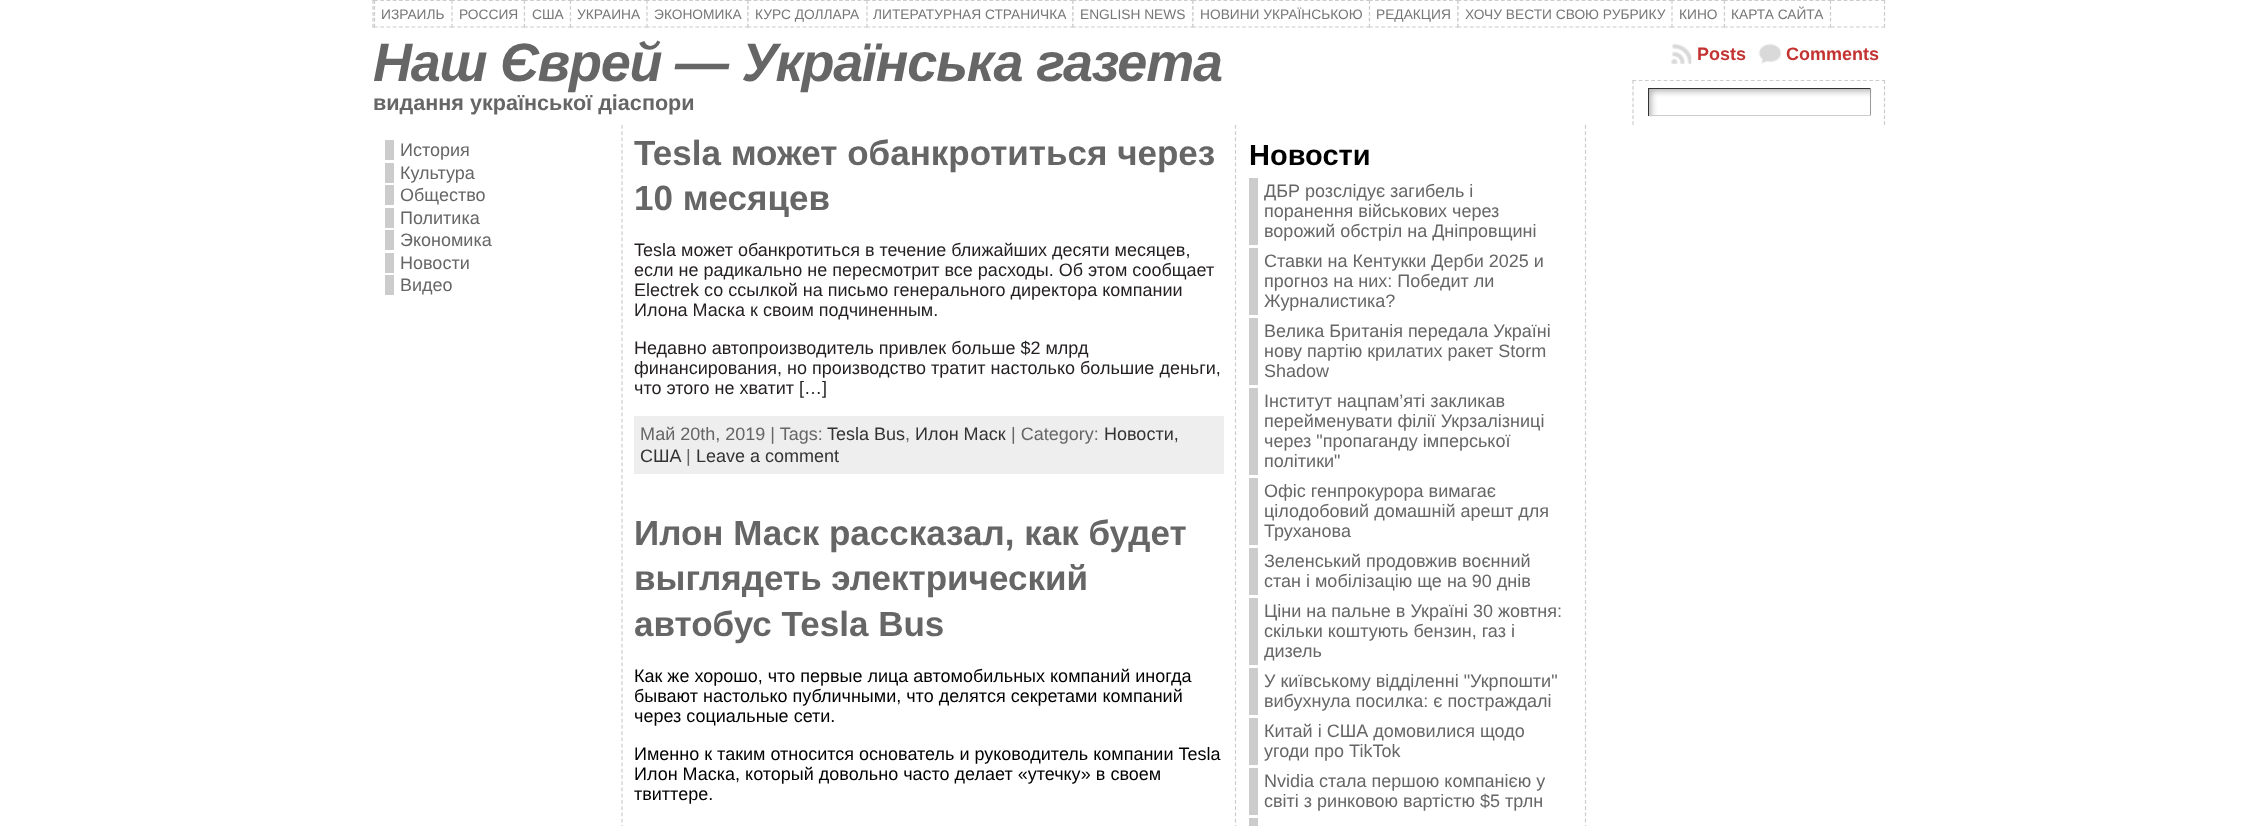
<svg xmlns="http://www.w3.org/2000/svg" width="2257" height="826">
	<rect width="100%" height="100%" fill="#FFFFFF" />
	<path d="M372.5 .5H1885" fill="none" stroke="#CCCCCC" stroke-width="1.2" stroke-dasharray="3.75 2.51" />
	<path d="M1884.5 0V27.5" fill="none" stroke="#CCCCCC" stroke-width="1.2" stroke-dasharray="3.75 2.19" />
	<path d="M372.5 27H1885" fill="none" stroke="#CCCCCC" stroke-width="1.2" stroke-dasharray="3.75 2.51" />
	<path d="M373 0V27.5" fill="none" stroke="#CCCCCC" stroke-width="1.2" stroke-dasharray="3.75 2.19" />
	<rect x="374" y="0" width="77" height="28" fill="#FFFFFF" />
	<path d="M374 .5H452.5" fill="none" stroke="#CCCCCC" stroke-width="1.2" stroke-dasharray="3.75 2.5" />
	<path d="M374 27H452.5" fill="none" stroke="#CCCCCC" stroke-width="1.2" stroke-dasharray="3.75 2.5" />
	<path d="M374.5 0V27.5" fill="none" stroke="#CCCCCC" stroke-width="1.2" stroke-dasharray="3.75 2.19" />
	<text x="381" y="19" font-family="Liberation Sans" font-size="13.75" fill="#777777">ИЗРАИЛЬ</text>
	<rect x="451" y="0" width="73" height="28" fill="#FFFFFF" />
	<path d="M451 .5H525" fill="none" stroke="#CCCCCC" stroke-width="1.2" stroke-dasharray="3.75 2.61" />
	<path d="M524.5 0V27.5" fill="none" stroke="#CCCCCC" stroke-width="1.2" stroke-dasharray="3.75 2.19" />
	<path d="M451 27H525" fill="none" stroke="#CCCCCC" stroke-width="1.2" stroke-dasharray="3.75 2.61" />
	<path d="M452 0V27.5" fill="none" stroke="#CCCCCC" stroke-width="1.2" stroke-dasharray="3.75 2.19" />
	<text x="459" y="19" font-family="Liberation Sans" font-size="13.75" fill="#777777">РОССИЯ</text>
	<rect x="524" y="0" width="46" height="28" fill="#FFFFFF" />
	<path d="M524 .5H571" fill="none" stroke="#CCCCCC" stroke-width="1.2" stroke-dasharray="3.75 2.5" />
	<path d="M570.5 0V27.5" fill="none" stroke="#CCCCCC" stroke-width="1.2" stroke-dasharray="3.75 2.19" />
	<path d="M524 27H571" fill="none" stroke="#CCCCCC" stroke-width="1.2" stroke-dasharray="3.75 2.5" />
	<path d="M524.5 0V27.5" fill="none" stroke="#CCCCCC" stroke-width="1.2" stroke-dasharray="3.75 2.19" />
	<text x="532" y="19" font-family="Liberation Sans" font-size="13.75" fill="#777777">США</text>
	<rect x="570" y="0" width="76" height="28" fill="#FFFFFF" />
	<path d="M570 .5H647.5" fill="none" stroke="#CCCCCC" stroke-width="1.2" stroke-dasharray="3.75 2.4" />
	<path d="M570 27H647.5" fill="none" stroke="#CCCCCC" stroke-width="1.2" stroke-dasharray="3.75 2.4" />
	<path d="M570.5 0V27.5" fill="none" stroke="#CCCCCC" stroke-width="1.2" stroke-dasharray="3.75 2.19" />
	<text x="577" y="19" font-family="Liberation Sans" font-size="13.75" fill="#777777">УКРАИНА</text>
	<rect x="646" y="0" width="100" height="28" fill="#FFFFFF" />
	<path d="M646 .5H749" fill="none" stroke="#CCCCCC" stroke-width="1.2" stroke-dasharray="3.75 2.42" />
	<path d="M748 0V27.5" fill="none" stroke="#CCCCCC" stroke-width="1.2" stroke-dasharray="3.75 2.19" />
	<path d="M646 27H749" fill="none" stroke="#CCCCCC" stroke-width="1.2" stroke-dasharray="3.75 2.42" />
	<path d="M647 0V27.5" fill="none" stroke="#CCCCCC" stroke-width="1.2" stroke-dasharray="3.75 2.19" />
	<text x="654" y="19" font-family="Liberation Sans" font-size="13.75" fill="#777777">ЭКОНОМИКА</text>
	<rect x="748" y="0" width="117" height="28" fill="#FFFFFF" />
	<path d="M747.5 .5H867.5" fill="none" stroke="#CCCCCC" stroke-width="1.2" stroke-dasharray="3.75 2.36" />
	<path d="M747.5 27H867.5" fill="none" stroke="#CCCCCC" stroke-width="1.2" stroke-dasharray="3.75 2.36" />
	<path d="M748 0V27.5" fill="none" stroke="#CCCCCC" stroke-width="1.2" stroke-dasharray="3.75 2.19" />
	<text x="755" y="19" font-family="Liberation Sans" font-size="13.75" fill="#777777">КУРС ДОЛЛАРА</text>
	<rect x="866" y="0" width="206" height="28" fill="#FFFFFF" />
	<path d="M866 .5H1074" fill="none" stroke="#CCCCCC" stroke-width="1.2" stroke-dasharray="3.75 2.42" />
	<path d="M1073 0V27.5" fill="none" stroke="#CCCCCC" stroke-width="1.2" stroke-dasharray="3.75 2.19" />
	<path d="M866 27H1074" fill="none" stroke="#CCCCCC" stroke-width="1.2" stroke-dasharray="3.75 2.42" />
	<path d="M867 0V27.5" fill="none" stroke="#CCCCCC" stroke-width="1.2" stroke-dasharray="3.75 2.19" />
	<text x="873" y="19" font-family="Liberation Sans" font-size="13.75" fill="#777777">ЛИТЕРАТУРНАЯ СТРАНИЧКА</text>
	<rect x="1073" y="0" width="120" height="28" fill="#FFFFFF" />
	<path d="M1072.5 .5H1194" fill="none" stroke="#CCCCCC" stroke-width="1.2" stroke-dasharray="3.75 2.44" />
	<path d="M1193 0V27.5" fill="none" stroke="#CCCCCC" stroke-width="1.2" stroke-dasharray="3.75 2.19" />
	<path d="M1072.5 27H1194" fill="none" stroke="#CCCCCC" stroke-width="1.2" stroke-dasharray="3.75 2.44" />
	<path d="M1073 0V27.5" fill="none" stroke="#CCCCCC" stroke-width="1.2" stroke-dasharray="3.75 2.19" />
	<text x="1080" y="19" font-family="Liberation Sans" font-size="13.75" fill="#777777">ENGLISH NEWS</text>
	<rect x="1193" y="0" width="176" height="28" fill="#FFFFFF" />
	<path d="M1192.5 .5H1370" fill="none" stroke="#CCCCCC" stroke-width="1.2" stroke-dasharray="3.75 2.45" />
	<path d="M1369.5 0V27.5" fill="none" stroke="#CCCCCC" stroke-width="1.2" stroke-dasharray="3.75 2.19" />
	<path d="M1192.5 27H1370" fill="none" stroke="#CCCCCC" stroke-width="1.2" stroke-dasharray="3.75 2.45" />
	<path d="M1193 0V27.5" fill="none" stroke="#CCCCCC" stroke-width="1.2" stroke-dasharray="3.75 2.19" />
	<text x="1200" y="19" font-family="Liberation Sans" font-size="13.75" fill="#777777">НОВИНИ УКРАЇНСЬКОЮ</text>
	<rect x="1369" y="0" width="89" height="28" fill="#FFFFFF" />
	<path d="M1369 .5H1459" fill="none" stroke="#CCCCCC" stroke-width="1.2" stroke-dasharray="3.75 2.41" />
	<path d="M1458 0V27.5" fill="none" stroke="#CCCCCC" stroke-width="1.2" stroke-dasharray="3.75 2.19" />
	<path d="M1369 27H1459" fill="none" stroke="#CCCCCC" stroke-width="1.2" stroke-dasharray="3.75 2.41" />
	<path d="M1369.5 0V27.5" fill="none" stroke="#CCCCCC" stroke-width="1.2" stroke-dasharray="3.75 2.19" />
	<text x="1376" y="19" font-family="Liberation Sans" font-size="13.75" fill="#777777">РЕДАКЦИЯ</text>
	<rect x="1458" y="0" width="213" height="28" fill="#FFFFFF" />
	<path d="M1457.5 .5H1672.5" fill="none" stroke="#CCCCCC" stroke-width="1.2" stroke-dasharray="3.75 2.46" />
	<path d="M1457.5 27H1672.5" fill="none" stroke="#CCCCCC" stroke-width="1.2" stroke-dasharray="3.75 2.46" />
	<path d="M1458 0V27.5" fill="none" stroke="#CCCCCC" stroke-width="1.2" stroke-dasharray="3.75 2.19" />
	<text x="1465" y="19" font-family="Liberation Sans" font-size="13.75" fill="#777777">ХОЧУ ВЕСТИ СВОЮ РУБРИКУ</text>
	<rect x="1671" y="0" width="52" height="28" fill="#FFFFFF" />
	<path d="M1671 .5H1725" fill="none" stroke="#CCCCCC" stroke-width="1.2" stroke-dasharray="3.75 2.5" />
	<path d="M1724.5 0V27.5" fill="none" stroke="#CCCCCC" stroke-width="1.2" stroke-dasharray="3.75 2.19" />
	<path d="M1671 27H1725" fill="none" stroke="#CCCCCC" stroke-width="1.2" stroke-dasharray="3.75 2.5" />
	<path d="M1672 0V27.5" fill="none" stroke="#CCCCCC" stroke-width="1.2" stroke-dasharray="3.75 2.19" />
	<text x="1679" y="19" font-family="Liberation Sans" font-size="13.75" fill="#777777">КИНО</text>
	<rect x="1724" y="0" width="105" height="28" fill="#FFFFFF" />
	<path d="M1724 .5H1831" fill="none" stroke="#CCCCCC" stroke-width="1.2" stroke-dasharray="3.75 2.35" />
	<path d="M1830.5 0V27.5" fill="none" stroke="#CCCCCC" stroke-width="1.2" stroke-dasharray="3.75 2.19" />
	<path d="M1724 27H1831" fill="none" stroke="#CCCCCC" stroke-width="1.2" stroke-dasharray="3.75 2.35" />
	<path d="M1724.5 0V27.5" fill="none" stroke="#CCCCCC" stroke-width="1.2" stroke-dasharray="3.75 2.19" />
	<text x="1731" y="19" font-family="Liberation Sans" font-size="13.75" fill="#777777">КАРТА САЙТА</text>
	<text x="373" y="81" font-family="Liberation Sans" font-size="54" font-weight="700" font-style="italic" letter-spacing="-1.25" fill="#666666">Наш Єврей — Українська газета</text>
	<text x="373" y="110" font-family="Liberation Sans" font-size="21.6" font-weight="700" fill="#666666">видання української діаспори</text>
	<image x="1671" y="43" width="21" height="21" href="assets/img1.png" />
	<text x="1697" y="60" font-family="Liberation Sans" font-size="18" font-weight="700" fill="#C33332">Posts</text>
	<image x="1758" y="43" width="24" height="21" href="assets/img2.png" />
	<text x="1786" y="60" font-family="Liberation Sans" font-size="18" font-weight="700" fill="#C33332">Comments</text>
	<path d="M1632.5 80.5H1885" fill="none" stroke="#CCCCCC" stroke-width="1.2" stroke-dasharray="3.75 2.48" />
	<path d="M1884.5 80V125" fill="none" stroke="#CCCCCC" stroke-width="1.2" stroke-dasharray="3.75 2.14" />
	<path d="M1633 80V125" fill="none" stroke="#CCCCCC" stroke-width="1.2" stroke-dasharray="3.75 2.14" />
	<image x="1648" y="88" width="224" height="29" href="assets/img3.png" />
	<rect x="1648" y="88" width="223" height="1" fill="#333333" />
	<rect x="1870" y="88" width="1" height="28" fill="#999999" />
	<rect x="1648" y="115" width="223" height="1" fill="#CCCCCC" />
	<rect x="1648" y="88" width="1" height="28" fill="#333333" />
	<path d="M622 125V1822.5" fill="none" stroke="#CCCCCC" stroke-width="1.2" stroke-dasharray="3.75 2.5" />
	<rect x="385" y="140" width="9" height="20" fill="#CCCCCC" />
	<text x="400" y="156" font-family="Liberation Sans" font-size="18" fill="#666666">История</text>
	<rect x="385" y="163" width="9" height="20" fill="#CCCCCC" />
	<text x="400" y="179" font-family="Liberation Sans" font-size="18" fill="#666666">Культура</text>
	<rect x="385" y="185" width="9" height="20" fill="#CCCCCC" />
	<text x="400" y="201" font-family="Liberation Sans" font-size="18" fill="#666666">Общество</text>
	<rect x="385" y="208" width="9" height="20" fill="#CCCCCC" />
	<text x="400" y="224" font-family="Liberation Sans" font-size="18" fill="#666666">Политика</text>
	<rect x="385" y="230" width="9" height="20" fill="#CCCCCC" />
	<text x="400" y="246" font-family="Liberation Sans" font-size="18" fill="#666666">Экономика</text>
	<rect x="385" y="253" width="9" height="20" fill="#CCCCCC" />
	<text x="400" y="269" font-family="Liberation Sans" font-size="18" fill="#666666">Новости</text>
	<rect x="385" y="275" width="9" height="20" fill="#CCCCCC" />
	<text x="400" y="291" font-family="Liberation Sans" font-size="18" fill="#666666">Видео</text>
	<g font-family="Liberation Sans" font-size="35" font-weight="700" fill="#666666">
		<text x="634" y="165">Tesla может обанкротиться через</text>
		<text x="634" y="210">10 месяцев</text>
	</g>
	<g font-family="Liberation Sans" font-size="18" fill="#231F20">
		<text x="634" y="256">Tesla может обанкротиться в течение ближайших десяти месяцев,</text>
		<text x="634" y="276">если не радикально не пересмотрит все расходы. Об этом сообщает</text>
		<text x="634" y="296">Electrek со ссылкой на письмо генерального директора компании</text>
		<text x="634" y="316">Илона Маска к своим подчиненным.</text>
		<text x="634" y="354">Недавно автопроизводитель привлек больше $2 млрд</text>
		<text x="634" y="374">финансирования, но производство тратит настолько большие деньги,</text>
		<text x="634" y="394">что этого не хватит […]</text>
	</g>
	<rect x="634" y="416" width="590" height="58" fill="#EEEEEE" />
	<text x="640" y="440" font-family="Liberation Sans" font-size="18" fill="#666666">Май 20th, 2019 | Tags:</text>
	<text x="827" y="440" font-family="Liberation Sans" font-size="18" fill="#333333">Tesla Bus</text>
	<text x="905" y="440" font-family="Liberation Sans" font-size="18" fill="#666666">,</text>
	<text x="915" y="440" font-family="Liberation Sans" font-size="18" fill="#333333">Илон Маск</text>
	<text x="1011" y="440" font-family="Liberation Sans" font-size="18" fill="#666666">| Category:</text>
	<g font-family="Liberation Sans" font-size="18" fill="#333333">
		<text x="1104" y="440">Новости,</text>
		<text x="640" y="462">США</text>
	</g>
	<text x="686" y="462" font-family="Liberation Sans" font-size="18" fill="#666666">|</text>
	<text x="696" y="462" font-family="Liberation Sans" font-size="18" fill="#333333">Leave a comment</text>
	<g font-family="Liberation Sans" font-size="35" font-weight="700" fill="#666666">
		<text x="634" y="545">Илон Маск рассказал, как будет</text>
		<text x="634" y="590">выглядеть электрический</text>
		<text x="634" y="636">автобус Tesla Bus</text>
	</g>
	<g font-family="Liberation Sans" font-size="18" fill="#000000">
		<text x="634" y="682">Как же хорошо, что первые лица автомобильных компаний иногда</text>
		<text x="634" y="702">бывают настолько публичными, что делятся секретами компаний</text>
		<text x="634" y="722">через социальные сети.</text>
		<text x="634" y="760">Именно к таким относится основатель и руководитель компании Tesla</text>
		<text x="634" y="780">Илон Маска, который довольно часто делает «утечку» в своем</text>
		<text x="634" y="800">твиттере.</text>
	</g>
	<path d="M1235.5 125V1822.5" fill="none" stroke="#CCCCCC" stroke-width="1.2" stroke-dasharray="3.75 2.5" />
	<text x="1249" y="165" font-family="Liberation Sans" font-size="29" font-weight="700" fill="#000000">Новости</text>
	<rect x="1249" y="178" width="9" height="67" fill="#CCCCCC" />
	<g font-family="Liberation Sans" font-size="18" fill="#666666">
		<text x="1264" y="197">ДБР розслідує загибель і</text>
		<text x="1264" y="217">поранення військових через</text>
		<text x="1264" y="237">ворожий обстріл на Дніпровщині</text>
	</g>
	<rect x="1249" y="248" width="9" height="67" fill="#CCCCCC" />
	<g font-family="Liberation Sans" font-size="18" fill="#666666">
		<text x="1264" y="267">Ставки на Кентукки Дерби 2025 и</text>
		<text x="1264" y="287">прогноз на них: Победит ли</text>
		<text x="1264" y="307">Журналистика?</text>
	</g>
	<rect x="1249" y="318" width="9" height="67" fill="#CCCCCC" />
	<g font-family="Liberation Sans" font-size="18" fill="#666666">
		<text x="1264" y="337">Велика Британія передала Україні</text>
		<text x="1264" y="357">нову партію крилатих ракет Storm</text>
		<text x="1264" y="377">Shadow</text>
	</g>
	<rect x="1249" y="388" width="9" height="87" fill="#CCCCCC" />
	<g font-family="Liberation Sans" font-size="18" fill="#666666">
		<text x="1264" y="407">Інститут нацпам’яті закликав</text>
		<text x="1264" y="427">перейменувати філії Укрзалізниці</text>
		<text x="1264" y="447">через "пропаганду імперської</text>
		<text x="1264" y="467">політики"</text>
	</g>
	<rect x="1249" y="478" width="9" height="67" fill="#CCCCCC" />
	<g font-family="Liberation Sans" font-size="18" fill="#666666">
		<text x="1264" y="497">Офіс генпрокурора вимагає</text>
		<text x="1264" y="517">цілодобовий домашній арешт для</text>
		<text x="1264" y="537">Труханова</text>
	</g>
	<rect x="1249" y="548" width="9" height="47" fill="#CCCCCC" />
	<g font-family="Liberation Sans" font-size="18" fill="#666666">
		<text x="1264" y="567">Зеленський продовжив воєнний</text>
		<text x="1264" y="587">стан і мобілізацію ще на 90 днів</text>
	</g>
	<rect x="1249" y="598" width="9" height="67" fill="#CCCCCC" />
	<g font-family="Liberation Sans" font-size="18" fill="#666666">
		<text x="1264" y="617">Ціни на пальне в Україні 30 жовтня:</text>
		<text x="1264" y="637">скільки коштують бензин, газ і</text>
		<text x="1264" y="657">дизель</text>
	</g>
	<rect x="1249" y="668" width="9" height="47" fill="#CCCCCC" />
	<g font-family="Liberation Sans" font-size="18" fill="#666666">
		<text x="1264" y="687">У київському відділенні "Укрпошти"</text>
		<text x="1264" y="707">вибухнула посилка: є постраждалі</text>
	</g>
	<rect x="1249" y="718" width="9" height="47" fill="#CCCCCC" />
	<g font-family="Liberation Sans" font-size="18" fill="#666666">
		<text x="1264" y="737">Китай і США домовилися щодо</text>
		<text x="1264" y="757">угоди про TikTok</text>
	</g>
	<rect x="1249" y="768" width="9" height="47" fill="#CCCCCC" />
	<g font-family="Liberation Sans" font-size="18" fill="#666666">
		<text x="1264" y="787">Nvidia стала першою компанією у</text>
		<text x="1264" y="807">світі з ринковою вартістю $5 трлн</text>
	</g>
	<rect x="1249" y="818" width="9" height="8" fill="#CCCCCC" />
	<path d="M1585.5 125V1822.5" fill="none" stroke="#CCCCCC" stroke-width="1.2" stroke-dasharray="3.75 2.5" />
</svg>
